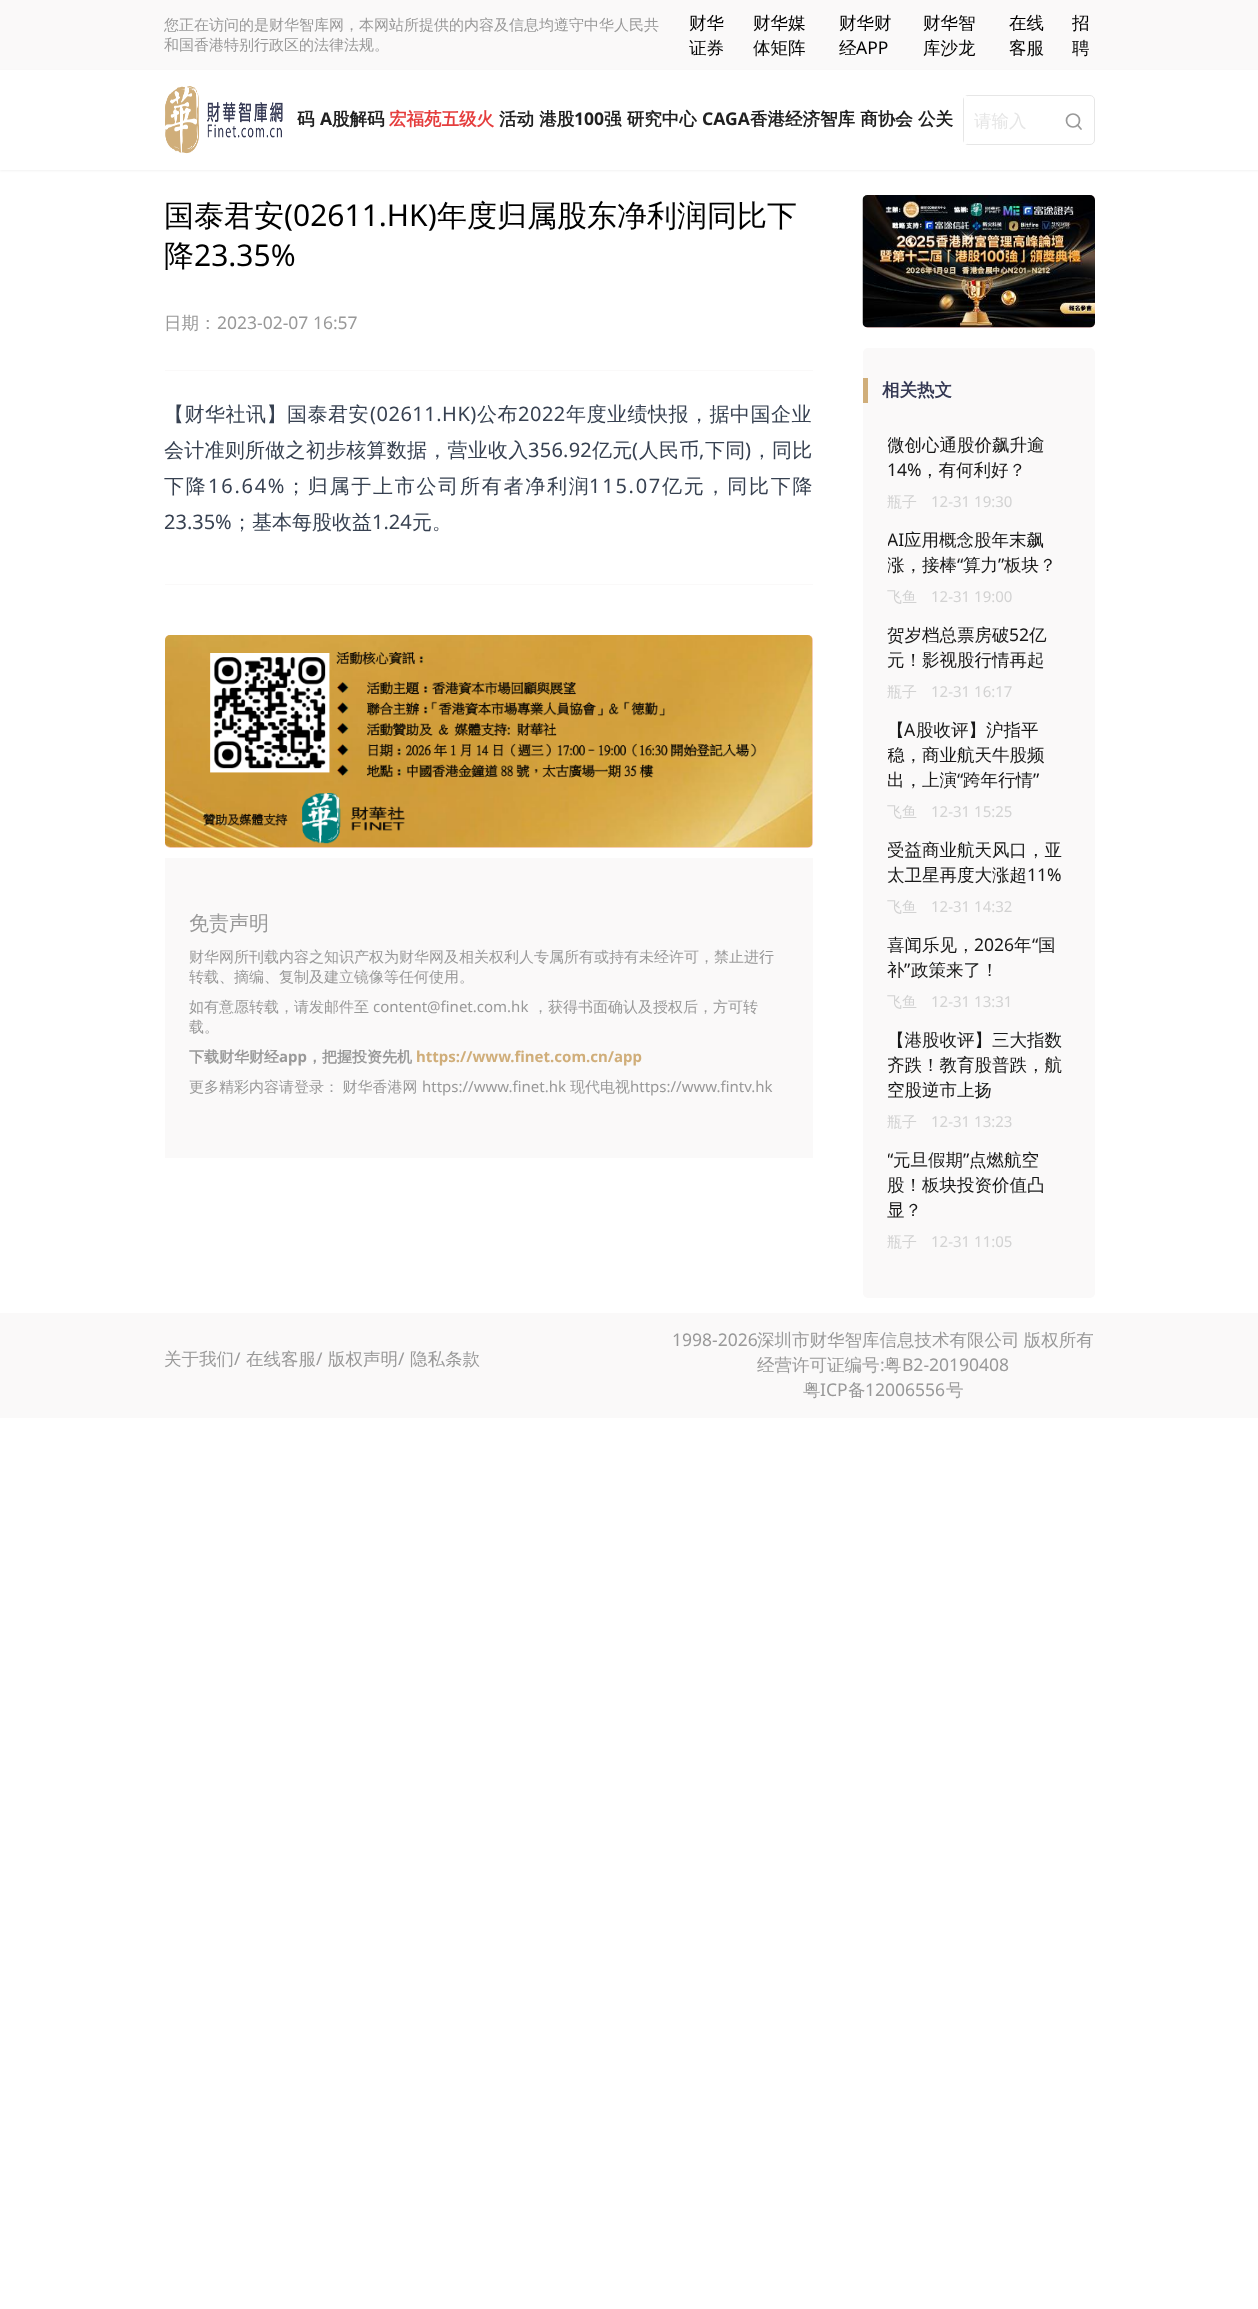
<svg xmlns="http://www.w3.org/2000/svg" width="1258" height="2309">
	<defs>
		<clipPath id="clip1"><rect x="888" y="433" width="182" height="50" /></clipPath>
		<clipPath id="clip2"><rect x="888" y="528" width="182" height="50" /></clipPath>
		<clipPath id="clip3"><rect x="888" y="718" width="182" height="75" /></clipPath>
		<clipPath id="clip4"><rect x="888" y="838" width="182" height="50" /></clipPath>
		<clipPath id="clip5"><rect x="888" y="1028" width="182" height="75" /></clipPath>
		<clipPath id="clip6"><rect x="888" y="1148" width="182" height="75" /></clipPath>
	</defs>
	<rect width="100%" height="100%" fill="#FFFFFF" />
	<rect x="0" y="0" width="1258" height="70" fill="#FAF9F9" />
	<g font-family="WenQuanYi Zen Hei" font-size="15" font-weight="500" fill="#999999">
		<text x="164" y="30">您正在访问的是财华智库网，本网站所提供的内容及信息均遵守中华人民共</text>
		<text x="164" y="50">和国香港特别行政区的法律法规。</text>
	</g>
	<g font-family="WenQuanYi Zen Hei" font-size="17.5" font-weight="500" fill="#000000">
		<text x="689" y="29">财华</text>
		<text x="689" y="54">证券</text>
		<text x="753" y="29">财华媒</text>
		<text x="753" y="54">体矩阵</text>
		<text x="839" y="29">财华财</text>
		<text x="839" y="54">经</text>
	</g>
	<text x="856" y="54" font-family="Noto Sans" font-size="17.5" fill="#000000">APP</text>
	<g font-family="WenQuanYi Zen Hei" font-size="17.5" font-weight="500" fill="#000000">
		<text x="923" y="29">财华智</text>
		<text x="923" y="54">库沙龙</text>
		<text x="1009" y="29">在线</text>
		<text x="1009" y="54">客服</text>
		<text x="1072" y="29">招</text>
		<text x="1072" y="54">聘</text>
	</g>
	<rect x="0" y="71" width="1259" height="100" fill="#000000" fill-opacity="0.05" filter="blur(1px)" />
	<rect x="0" y="70" width="1258" height="100" fill="#FFFFFF" />
	<image x="165" y="86" width="118" height="68" href="assets/img1.png" />
	<text x="297" y="125" font-family="WenQuanYi Zen Hei" font-size="17.5" font-weight="700" fill="#212121">码</text>
	<text x="320" y="125" font-family="Noto Sans" font-size="17.5" font-weight="700" fill="#212121">A</text>
	<text x="332" y="125" font-family="WenQuanYi Zen Hei" font-size="17.5" font-weight="700" fill="#212121">股解码</text>
	<text x="389" y="125" font-family="WenQuanYi Zen Hei" font-size="17.5" font-weight="700" fill="#E53E3E">宏福苑五级火</text>
	<text x="499" y="125" font-family="WenQuanYi Zen Hei" font-size="17.5" font-weight="700" fill="#212121">活动 港股</text>
	<text x="574" y="125" font-family="Noto Sans" font-size="17.5" font-weight="700" fill="#212121">100</text>
	<text x="604" y="125" font-family="WenQuanYi Zen Hei" font-size="17.5" font-weight="700" fill="#212121">强 研究中心</text>
	<text x="702" y="125" font-family="Noto Sans" font-size="17.5" font-weight="700" fill="#212121">CAGA</text>
	<text x="750" y="125" font-family="WenQuanYi Zen Hei" font-size="17.5" font-weight="700" fill="#212121">香港经济智库 商协会 公关</text>
	<rect x="963.5" y="95.5" width="131" height="49" rx="4.5" fill="none" stroke="#E6E6E6" />
	<rect x="964" y="96" width="3" height="48" fill="#FFFFFF" />
	<text x="974" y="127" font-family="WenQuanYi Zen Hei" font-size="17.5" font-weight="500" fill="#E6E6E6">请输入</text>
	<circle cx="1073" cy="120.5" r="6.5" fill="none" stroke="#999999" stroke-width="1.7" />
	<path d="M1081 129L1077.5 125" fill="none" stroke="#999999" stroke-width="1.7" stroke-linecap="round" stroke-linejoin="round" />
	<rect x="165" y="370" width="648" height="1" fill="#FAF9F9" />
	<text x="164" y="226" font-family="WenQuanYi Zen Hei" font-size="30" font-weight="500" fill="#000000">国泰君安</text>
	<text x="284" y="226" font-family="Noto Sans" font-size="30" fill="#000000">(02611.HK)</text>
	<g font-family="WenQuanYi Zen Hei" font-size="30" font-weight="500" fill="#000000">
		<text x="437" y="226">年度归属股东净利润同比下</text>
		<text x="164" y="266">降</text>
	</g>
	<text x="194" y="266" font-family="Noto Sans" font-size="30" fill="#000000">23.35%</text>
	<text x="164" y="329" font-family="WenQuanYi Zen Hei" font-size="17.5" font-weight="500" fill="#999999">日期：</text>
	<text x="217" y="329" font-family="Noto Sans" font-size="17.5" fill="#999999">2023-02-07 16:57</text>
	<text x="164" y="421" font-family="WenQuanYi Zen Hei" font-size="20" font-weight="500" letter-spacing="0.5" fill="#374151">【财华社讯】国泰君安</text>
	<text x="370" y="421" font-family="Noto Sans" font-size="20" letter-spacing="0.5" fill="#374151">(02611.HK)</text>
	<text x="477" y="421" font-family="WenQuanYi Zen Hei" font-size="20" font-weight="500" letter-spacing="0.5" fill="#374151">公布</text>
	<text x="518" y="421" font-family="Noto Sans" font-size="20" letter-spacing="0.5" fill="#374151">2022</text>
	<text x="566" y="421" font-family="WenQuanYi Zen Hei" font-size="20" font-weight="500" letter-spacing="0.5" fill="#374151">年度业绩快报，据中国企业</text>
	<text x="164" y="457" font-family="WenQuanYi Zen Hei" font-size="20" font-weight="500" letter-spacing="0.25" fill="#374151">会计准则所做之初步核算数据，营业收入</text>
	<text x="528" y="457" font-family="Noto Sans" font-size="20" letter-spacing="0.25" fill="#374151">356.92</text>
	<g font-family="WenQuanYi Zen Hei" font-size="20" font-weight="500" letter-spacing="0.25" fill="#374151">
		<text x="592" y="457">亿元 人民币</text>
		<text x="705" y="457">下同 ，同比</text>
	</g>
	<g font-family="Noto Sans" font-size="20" letter-spacing="0.25" fill="#374151">
		<text x="632" y="457">(</text>
		<text x="699" y="457">,</text>
		<text x="745" y="457">)</text>
	</g>
	<text x="164" y="493" font-family="WenQuanYi Zen Hei" font-size="20" font-weight="500" letter-spacing="1.75" fill="#374151">下降</text>
	<text x="208" y="493" font-family="Noto Sans" font-size="20" letter-spacing="1.75" fill="#374151">16.64%</text>
	<text x="286" y="493" font-family="WenQuanYi Zen Hei" font-size="20" font-weight="500" letter-spacing="1.75" fill="#374151">；归属于上市公司所有者净利润</text>
	<text x="589" y="493" font-family="Noto Sans" font-size="20" letter-spacing="1.75" fill="#374151">115.07</text>
	<text x="662" y="493" font-family="WenQuanYi Zen Hei" font-size="20" font-weight="500" letter-spacing="1.75" fill="#374151">亿元，同比下降</text>
	<text x="164" y="529" font-family="Noto Sans" font-size="20" fill="#374151">23.35%</text>
	<text x="232" y="529" font-family="WenQuanYi Zen Hei" font-size="20" font-weight="500" fill="#374151">；基本每股收益</text>
	<text x="372" y="529" font-family="Noto Sans" font-size="20" fill="#374151">1.24</text>
	<text x="412" y="529" font-family="WenQuanYi Zen Hei" font-size="20" font-weight="500" fill="#374151">元。</text>
	<rect x="165" y="584" width="648" height="1" fill="#FAF9F9" />
	<rect x="165" y="635" width="648" height="213" rx="5" fill="#FED7D7" />
	<image x="165" y="635" width="648" height="213" href="assets/img2.png" />
	<rect x="165" y="858" width="648" height="300" fill="#FAF9F9" />
	<text x="189" y="930" font-family="WenQuanYi Zen Hei" font-size="20" font-weight="500" fill="#999999">免责声明</text>
	<g font-family="WenQuanYi Zen Hei" font-size="15" font-weight="500" fill="#999999">
		<text x="189" y="962">财华网所刊载内容之知识产权为财华网及相关权利人专属所有或持有未经许可，禁止进行</text>
		<text x="189" y="982">转载、摘编、复制及建立镜像等任何使用。</text>
		<text x="189" y="1012">如有意愿转载，请发邮件至</text>
	</g>
	<text x="373" y="1012" font-family="Noto Sans" font-size="15" fill="#999999">content@finet.com.hk</text>
	<g font-family="WenQuanYi Zen Hei" font-size="15" font-weight="500" fill="#999999">
		<text x="533" y="1012">，获得书面确认及授权后，方可转</text>
		<text x="189" y="1032">载。</text>
	</g>
	<text x="189" y="1062" font-family="WenQuanYi Zen Hei" font-size="15" font-weight="700" fill="#999999">下载财华财经</text>
	<text x="279" y="1062" font-family="Noto Sans" font-size="15" font-weight="700" fill="#999999">app</text>
	<text x="307" y="1062" font-family="WenQuanYi Zen Hei" font-size="15" font-weight="700" fill="#999999">，把握投资先机</text>
	<text x="416" y="1062" font-family="Noto Sans" font-size="15" font-weight="700" fill="#D0AE7A">https://www.finet.com.cn/app</text>
	<text x="189" y="1092" word-spacing="-1" font-family="WenQuanYi Zen Hei" font-size="15" font-weight="500" fill="#999999">更多精彩内容请登录： 财华香港网</text>
	<text x="422" y="1092" font-family="Noto Sans" font-size="15" fill="#999999">https://www.finet.hk</text>
	<text x="570" y="1092" font-family="WenQuanYi Zen Hei" font-size="15" font-weight="500" fill="#999999">现代电视</text>
	<text x="630" y="1092" font-family="Noto Sans" font-size="15" fill="#999999">https://www.fintv.hk</text>
	<rect x="863" y="195" width="232" height="133" rx="5" fill="#FED7D7" />
	<image x="862" y="195" width="233" height="133" href="assets/img3.png" />
	<rect x="863" y="348" width="232" height="950" rx="5" fill="#FAF9F9" />
	<rect x="863" y="378" width="5" height="25" fill="#D0AE7A" />
	<text x="882" y="396" font-family="WenQuanYi Zen Hei" font-size="17.5" font-weight="700" fill="#343853">相关热文</text>
	<g clip-path="url(#clip1)">
		<text x="887" y="451" font-family="WenQuanYi Zen Hei" font-size="17.5" font-weight="500" fill="#181818">微创心通股价飙升逾</text>
	</g>
	<text x="887" y="476" font-family="Noto Sans" font-size="17.5" fill="#181818">14%</text>
	<text x="921" y="476" font-family="WenQuanYi Zen Hei" font-size="17.5" font-weight="500" fill="#181818">，有何利好？</text>
	<text x="887" y="507" font-family="WenQuanYi Zen Hei" font-size="15" font-weight="500" fill="#D2D2D2">瓶子</text>
	<text x="931" y="507" font-family="Noto Sans" font-size="15" fill="#D2D2D2">12-31 19:30</text>
	<g clip-path="url(#clip2)">
		<text x="887" y="546" font-family="Noto Sans" font-size="17.5" fill="#181818">AI</text>
	</g>
	<text x="904" y="546" font-family="WenQuanYi Zen Hei" font-size="17.5" font-weight="500" fill="#181818">应用概念股年末飙</text>
	<g clip-path="url(#clip2)">
		<text x="887" y="571" font-family="WenQuanYi Zen Hei" font-size="17.5" font-weight="500" fill="#181818">涨，接棒</text>
	</g>
	<text x="957" y="571" font-family="Noto Sans" font-size="17.5" fill="#181818">“</text>
	<text x="963" y="571" font-family="WenQuanYi Zen Hei" font-size="17.5" font-weight="500" fill="#181818">算力</text>
	<text x="998" y="571" font-family="Noto Sans" font-size="17.5" fill="#181818">”</text>
	<text x="1004" y="571" font-family="WenQuanYi Zen Hei" font-size="17.5" font-weight="500" fill="#181818">板块？</text>
	<text x="887" y="602" font-family="WenQuanYi Zen Hei" font-size="15" font-weight="500" fill="#D2D2D2">飞鱼</text>
	<text x="931" y="602" font-family="Noto Sans" font-size="15" fill="#D2D2D2">12-31 19:00</text>
	<text x="887" y="641" font-family="WenQuanYi Zen Hei" font-size="17.5" font-weight="500" fill="#181818">贺岁档总票房破</text>
	<text x="1009" y="641" font-family="Noto Sans" font-size="17.5" fill="#181818">52</text>
	<g font-family="WenQuanYi Zen Hei" font-size="17.5" font-weight="500" fill="#181818">
		<text x="1029" y="641">亿</text>
		<text x="887" y="666">元！影视股行情再起</text>
	</g>
	<text x="887" y="697" font-family="WenQuanYi Zen Hei" font-size="15" font-weight="500" fill="#D2D2D2">瓶子</text>
	<text x="931" y="697" font-family="Noto Sans" font-size="15" fill="#D2D2D2">12-31 16:17</text>
	<text x="887" y="736" font-family="WenQuanYi Zen Hei" font-size="17.5" font-weight="500" fill="#181818">【</text>
	<text x="904" y="736" font-family="Noto Sans" font-size="17.5" fill="#181818">A</text>
	<text x="916" y="736" font-family="WenQuanYi Zen Hei" font-size="17.5" font-weight="500" fill="#181818">股收评】沪指平</text>
	<g clip-path="url(#clip3)">
		<text x="887" y="761" font-family="WenQuanYi Zen Hei" font-size="17.5" font-weight="500" fill="#181818">稳，商业航天牛股频</text>
	</g>
	<text x="887" y="786" font-family="WenQuanYi Zen Hei" font-size="17.5" font-weight="500" fill="#181818">出，上演</text>
	<text x="957" y="786" font-family="Noto Sans" font-size="17.5" fill="#181818">“</text>
	<text x="963" y="786" font-family="WenQuanYi Zen Hei" font-size="17.5" font-weight="500" fill="#181818">跨年行情</text>
	<text x="1033" y="786" font-family="Noto Sans" font-size="17.5" fill="#181818">”</text>
	<text x="887" y="817" font-family="WenQuanYi Zen Hei" font-size="15" font-weight="500" fill="#D2D2D2">飞鱼</text>
	<text x="931" y="817" font-family="Noto Sans" font-size="15" fill="#D2D2D2">12-31 15:25</text>
	<g clip-path="url(#clip4)">
		<text x="887" y="856" font-family="WenQuanYi Zen Hei" font-size="17.5" font-weight="500" fill="#181818">受益商业航天风口，亚</text>
	</g>
	<text x="887" y="881" font-family="WenQuanYi Zen Hei" font-size="17.5" font-weight="500" fill="#181818">太卫星再度大涨超</text>
	<text x="1027" y="881" font-family="Noto Sans" font-size="17.5" fill="#181818">11%</text>
	<text x="887" y="912" font-family="WenQuanYi Zen Hei" font-size="15" font-weight="500" fill="#D2D2D2">飞鱼</text>
	<text x="931" y="912" font-family="Noto Sans" font-size="15" fill="#D2D2D2">12-31 14:32</text>
	<text x="887" y="951" font-family="WenQuanYi Zen Hei" font-size="17.5" font-weight="500" fill="#181818">喜闻乐见，</text>
	<text x="974" y="951" font-family="Noto Sans" font-size="17.5" fill="#181818">2026</text>
	<text x="1014" y="951" font-family="WenQuanYi Zen Hei" font-size="17.5" font-weight="500" fill="#181818">年</text>
	<text x="1032" y="951" font-family="Noto Sans" font-size="17.5" fill="#181818">“</text>
	<g font-family="WenQuanYi Zen Hei" font-size="17.5" font-weight="500" fill="#181818">
		<text x="1038" y="951">国</text>
		<text x="887" y="976">补</text>
	</g>
	<text x="904" y="976" font-family="Noto Sans" font-size="17.5" fill="#181818">”</text>
	<text x="911" y="976" font-family="WenQuanYi Zen Hei" font-size="17.5" font-weight="500" fill="#181818">政策来了！</text>
	<text x="887" y="1007" font-family="WenQuanYi Zen Hei" font-size="15" font-weight="500" fill="#D2D2D2">飞鱼</text>
	<text x="931" y="1007" font-family="Noto Sans" font-size="15" fill="#D2D2D2">12-31 13:31</text>
	<text x="887" y="1046" font-family="WenQuanYi Zen Hei" font-size="17.5" font-weight="500" fill="#181818">【港股收评】三大指数</text>
	<g clip-path="url(#clip5)">
		<text x="887" y="1071" font-family="WenQuanYi Zen Hei" font-size="17.5" font-weight="500" fill="#181818">齐跌！教育股普跌，航</text>
	</g>
	<text x="887" y="1096" font-family="WenQuanYi Zen Hei" font-size="17.5" font-weight="500" fill="#181818">空股逆市上扬</text>
	<text x="887" y="1127" font-family="WenQuanYi Zen Hei" font-size="15" font-weight="500" fill="#D2D2D2">瓶子</text>
	<text x="931" y="1127" font-family="Noto Sans" font-size="15" fill="#D2D2D2">12-31 13:23</text>
	<g clip-path="url(#clip6)">
		<text x="887" y="1166" font-family="Noto Sans" font-size="17.5" fill="#181818">“</text>
	</g>
	<text x="893" y="1166" font-family="WenQuanYi Zen Hei" font-size="17.5" font-weight="500" fill="#181818">元旦假期</text>
	<text x="963" y="1166" font-family="Noto Sans" font-size="17.5" fill="#181818">”</text>
	<g font-family="WenQuanYi Zen Hei" font-size="17.5" font-weight="500" fill="#181818">
		<text x="969" y="1166">点燃航空</text>
		<text x="887" y="1191">股！板块投资价值凸</text>
		<text x="887" y="1216">显？</text>
	</g>
	<text x="887" y="1247" font-family="WenQuanYi Zen Hei" font-size="15" font-weight="500" fill="#D2D2D2">瓶子</text>
	<text x="931" y="1247" font-family="Noto Sans" font-size="15" fill="#D2D2D2">12-31 11:05</text>
	<rect x="0" y="1313" width="1258" height="105" fill="#FAF9F9" />
	<text x="164" y="1365" font-family="WenQuanYi Zen Hei" font-size="17.5" font-weight="500" fill="#999999">关于我们</text>
	<text x="234" y="1365" font-family="Noto Sans" font-size="17.5" fill="#999999">/</text>
	<text x="246" y="1365" font-family="WenQuanYi Zen Hei" font-size="17.5" font-weight="500" fill="#999999">在线客服</text>
	<text x="316" y="1365" font-family="Noto Sans" font-size="17.5" fill="#999999">/</text>
	<text x="328" y="1365" font-family="WenQuanYi Zen Hei" font-size="17.5" font-weight="500" fill="#999999">版权声明</text>
	<text x="398" y="1365" font-family="Noto Sans" font-size="17.5" fill="#999999">/</text>
	<text x="410" y="1365" font-family="WenQuanYi Zen Hei" font-size="17.5" font-weight="500" fill="#999999">隐私条款</text>
	<text x="672" y="1346" font-family="Noto Sans" font-size="17.5" fill="#999999">1998-2026</text>
	<g font-family="WenQuanYi Zen Hei" font-size="17.5" font-weight="500" fill="#999999">
		<text x="757" y="1346" word-spacing="-1">深圳市财华智库信息技术有限公司 版权所有</text>
		<text x="757" y="1371">经营许可证编号</text>
	</g>
	<text x="880" y="1371" font-family="Noto Sans" font-size="17.5" fill="#999999">:</text>
	<text x="884" y="1371" font-family="WenQuanYi Zen Hei" font-size="17.5" font-weight="500" fill="#999999">粤</text>
	<text x="902" y="1371" font-family="Noto Sans" font-size="17.5" fill="#999999">B2-20190408</text>
	<text x="803" y="1396" font-family="WenQuanYi Zen Hei" font-size="17.5" font-weight="500" fill="#999999">粤</text>
	<text x="820" y="1396" font-family="Noto Sans" font-size="17.5" fill="#999999">ICP</text>
	<text x="848" y="1396" font-family="WenQuanYi Zen Hei" font-size="17.5" font-weight="500" fill="#999999">备</text>
	<text x="865" y="1396" font-family="Noto Sans" font-size="17.5" fill="#999999">12006556</text>
	<text x="946" y="1396" font-family="WenQuanYi Zen Hei" font-size="17.5" font-weight="500" fill="#999999">号</text>
</svg>
